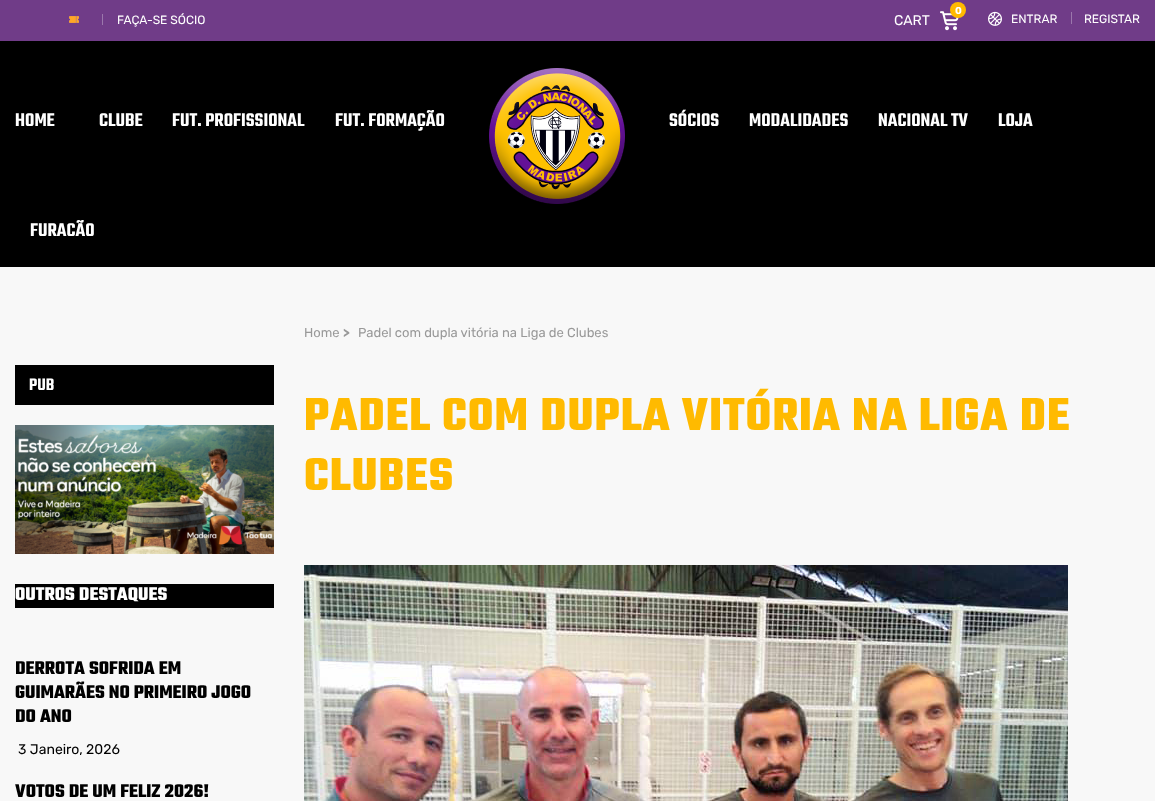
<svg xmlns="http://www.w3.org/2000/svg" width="1155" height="801">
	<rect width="100%" height="100%" fill="#F8F8F8" />
	<rect x="0" y="0" width="1155" height="41" fill="#703C88" />
	<image x="69" y="16" width="10" height="7" href="assets/img1.png" />
	<rect x="102" y="14" width="1" height="11" fill="#9B77AC" />
	<text x="117" y="24" font-family="Rubik" font-size="12" fill="#FFFFFF">FAÇA-SE SÓCIO</text>
	<image x="940" y="11" width="19" height="20" href="assets/img2.png" />
	<circle cx="958" cy="10" r="8" fill="#FFBA00" />
	<text x="955" y="14" font-family="Rubik" font-size="10" font-weight="700" fill="#FFFFFF">0</text>
	<text x="894" y="25" font-family="Rubik" font-size="14" fill="#FFFFFF">CART</text>
	<image x="988" y="11" width="14" height="15" href="assets/img3.png" />
	<text x="1011" y="23" font-family="Rubik" font-size="12" fill="#FFFFFF">ENTRAR</text>
	<rect x="1071" y="12" width="1" height="12" fill="#9B77AC" />
	<text x="1084" y="23" font-family="Rubik" font-size="12" fill="#FFFFFF">REGISTAR</text>
	<rect x="0" y="41" width="1155" height="226" fill="#000000" />
	<g font-family="Teko" font-size="20" font-weight="600" fill="#FFFFFF">
		<text x="15" y="126">HOME</text>
		<text x="99" y="126">CLUBE</text>
		<text x="172" y="126">FUT. PROFISSIONAL</text>
		<text x="335" y="126">FUT. FORMAÇÃO</text>
	</g>
	<image x="489" y="68" width="136" height="136" href="assets/img4.png" />
	<g font-family="Teko" font-size="20" font-weight="600" fill="#FFFFFF">
		<text x="669" y="126">SÓCIOS</text>
		<text x="749" y="126">MODALIDADES</text>
		<text x="878" y="126">NACIONAL TV</text>
		<text x="998" y="126">LOJA</text>
		<text x="30" y="236">FURACÃO</text>
	</g>
	<rect x="15" y="365" width="259" height="40" fill="#000000" />
	<text x="29" y="390" font-family="Teko" font-size="18" font-weight="600" fill="#FFFFFF">PUB</text>
	<image x="15" y="425" width="259" height="129" href="assets/img5.png" />
	<rect x="15" y="584" width="259" height="24" fill="#000000" />
	<text x="15" y="600" font-family="Teko" font-size="20" font-weight="700" fill="#FFFFFF">OUTROS DESTAQUES</text>
	<g font-family="Teko" font-size="20" font-weight="700" fill="#000000">
		<text x="15" y="674">DERROTA SOFRIDA EM</text>
		<text x="15" y="698">GUIMARÃES NO PRIMEIRO JOGO</text>
		<text x="15" y="722">DO ANO</text>
	</g>
	<text x="18" y="754" font-family="Rubik" font-size="14" fill="#000000">3 Janeiro, 2026</text>
	<text x="15" y="797" font-family="Teko" font-size="20" font-weight="700" fill="#000000">VOTOS DE UM FELIZ 2026!</text>
	<text x="304" y="337" font-family="Rubik" font-size="13" fill="#999999">Home</text>
	<text x="343" y="337" font-family="Rubik" font-size="13" font-weight="700" letter-spacing="1" fill="#999999">&gt;</text>
	<text x="358" y="337" font-family="Rubik" font-size="13" fill="#999999">Padel com dupla vitória na Liga de Clubes</text>
	<g font-family="Teko" font-size="50" font-weight="700" letter-spacing="1" fill="#FFBA00">
		<text x="304" y="430">PADEL COM DUPLA VITÓRIA NA LIGA DE</text>
		<text x="304" y="490">CLUBES</text>
	</g>
	<image x="304" y="565" width="764" height="236" href="assets/img6.png" />
</svg>
